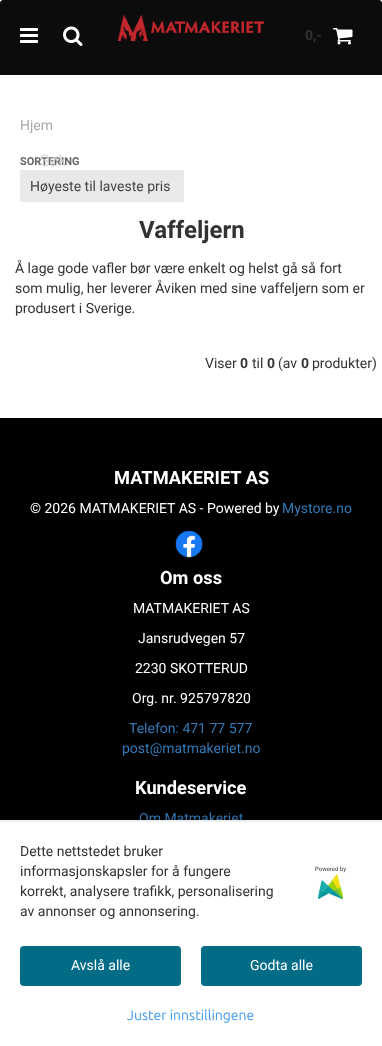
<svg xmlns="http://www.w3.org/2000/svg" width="382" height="1046">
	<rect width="100%" height="100%" fill="#FFFFFF" />
	<path d="M3 0H379C380.5 0 382 1.5 382 3V64H0V3C0 1.5 1.5 0 3 0Z" fill="#0C0C0C" />
	<image x="20" y="28" width="18" height="15" href="assets/img1.png" />
	<image x="63" y="26" width="20" height="20" href="assets/img2.png" />
	<image x="118" y="15" width="146" height="26" href="assets/img3.png" />
	<text x="305" y="40" font-family="Roboto" font-size="14" font-weight="700" fill="#333333">0,-</text>
	<image x="333" y="28" width="20" height="17" href="assets/img4.png" />
	<rect x="0" y="64" width="382" height="11" fill="#0C0C0C" />
	<text x="20" y="130" font-family="Roboto" font-size="14" fill="#AAAAAA">Hjem</text>
	<text x="20" y="165" font-family="Roboto" font-size="11" font-weight="700" fill="#666666">SORTERING</text>
	<rect x="20" y="170" width="164" height="32" fill="#E9E9E9" />
	<text x="30" y="191" font-family="Roboto" font-size="14" fill="#444444">Høyeste til laveste pris</text>
	<text x="139" y="238" font-family="Roboto" font-size="24" font-weight="700" fill="#333333">Vaffeljern</text>
	<g font-family="Roboto" font-size="14" fill="#333333">
		<text x="15" y="273">Å lage gode vafler bør være enkelt og helst gå så fort</text>
		<text x="15" y="293">som mulig, her leverer Åviken med sine vaffeljern som er</text>
		<text x="15" y="313">produsert i Sverige.</text>
	</g>
	<text x="40" y="166" font-family="Roboto" font-size="16" font-weight="300" fill="#CFCFCF">Søk</text>
	<text x="205" y="368" font-family="Roboto" font-size="14" fill="#333333">Viser</text>
	<text x="240" y="368" font-family="Roboto" font-size="14" font-weight="700" fill="#333333">0</text>
	<text x="252" y="368" font-family="Roboto" font-size="14" fill="#333333">til</text>
	<text x="267" y="368" font-family="Roboto" font-size="14" font-weight="700" fill="#333333">0</text>
	<text x="278" y="368" font-family="Roboto" font-size="14" fill="#333333">(av</text>
	<text x="301" y="368" font-family="Roboto" font-size="14" font-weight="700" fill="#333333">0</text>
	<text x="312" y="368" font-family="Roboto" font-size="14" fill="#333333">produkter)</text>
	<rect x="0" y="418" width="382" height="402" fill="#000000" />
	<text x="114" y="484" font-family="Roboto" font-size="18.25" font-weight="700" fill="#FFFFFF">MATMAKERIET AS</text>
	<text x="30" y="513" font-family="Roboto" font-size="14" fill="#FFFFFF">© 2026 MATMAKERIET AS - Powered by</text>
	<text x="282" y="513" font-family="Roboto" font-size="14" fill="#337AB7">Mystore.no</text>
	<image x="175" y="530" width="28" height="28" href="assets/img5.png" />
	<text x="160" y="584" font-family="Roboto" font-size="18.25" font-weight="700" fill="#FFFFFF">Om oss</text>
	<g font-family="Roboto" font-size="14" fill="#FFFFFF">
		<text x="133" y="613">MATMAKERIET AS</text>
		<text x="138" y="643">Jansrudvegen 57</text>
		<text x="135" y="673">2230 SKOTTERUD</text>
		<text x="132" y="703">Org. nr. 925797820</text>
	</g>
	<g font-family="Roboto" font-size="14" fill="#337AB7">
		<text x="129" y="733">Telefon: 471 77 577</text>
		<text x="122" y="753">post@matmakeriet.no</text>
	</g>
	<text x="135" y="794" font-family="Roboto" font-size="18.25" font-weight="700" fill="#FFFFFF">Kundeservice</text>
	<text x="139" y="823" font-family="Roboto" font-size="14" fill="#337AB7">Om Matmakeriet</text>
	<rect x="0" y="820" width="382" height="226" fill="#000000" fill-opacity="0.25" filter="blur(5px)" />
	<rect x="0" y="822" width="382" height="224" fill="#FFFFFF" />
	<rect x="0" y="820" width="382" height="2" fill="#EEEEEE" />
	<g font-family="Roboto" font-size="14" fill="#333333">
		<text x="20" y="856">Dette nettstedet bruker</text>
		<text x="20" y="876">informasjonskapsler for å fungere</text>
		<text x="20" y="896">korrekt, analysere trafikk, personalisering</text>
		<text x="20" y="916">av annonser og annonsering.</text>
	</g>
	<text x="315" y="871" font-family="Roboto" font-size="6" fill="#333333">Powered by</text>
	<image x="318" y="874" width="25" height="25" href="assets/img6.png" />
	<rect x="20" y="946" width="161" height="40" rx="4" fill="#026B85" />
	<text x="71" y="970" font-family="Roboto" font-size="14" fill="#FFFFFF">Avslå alle</text>
	<rect x="201" y="946" width="161" height="40" rx="4" fill="#026B85" />
	<text x="250" y="970" font-family="Roboto" font-size="14" fill="#FFFFFF">Godta alle</text>
	<text x="127" y="1020" font-family="Ubuntu" font-size="14" fill="#409AEF">Juster innstillingene</text>
</svg>
